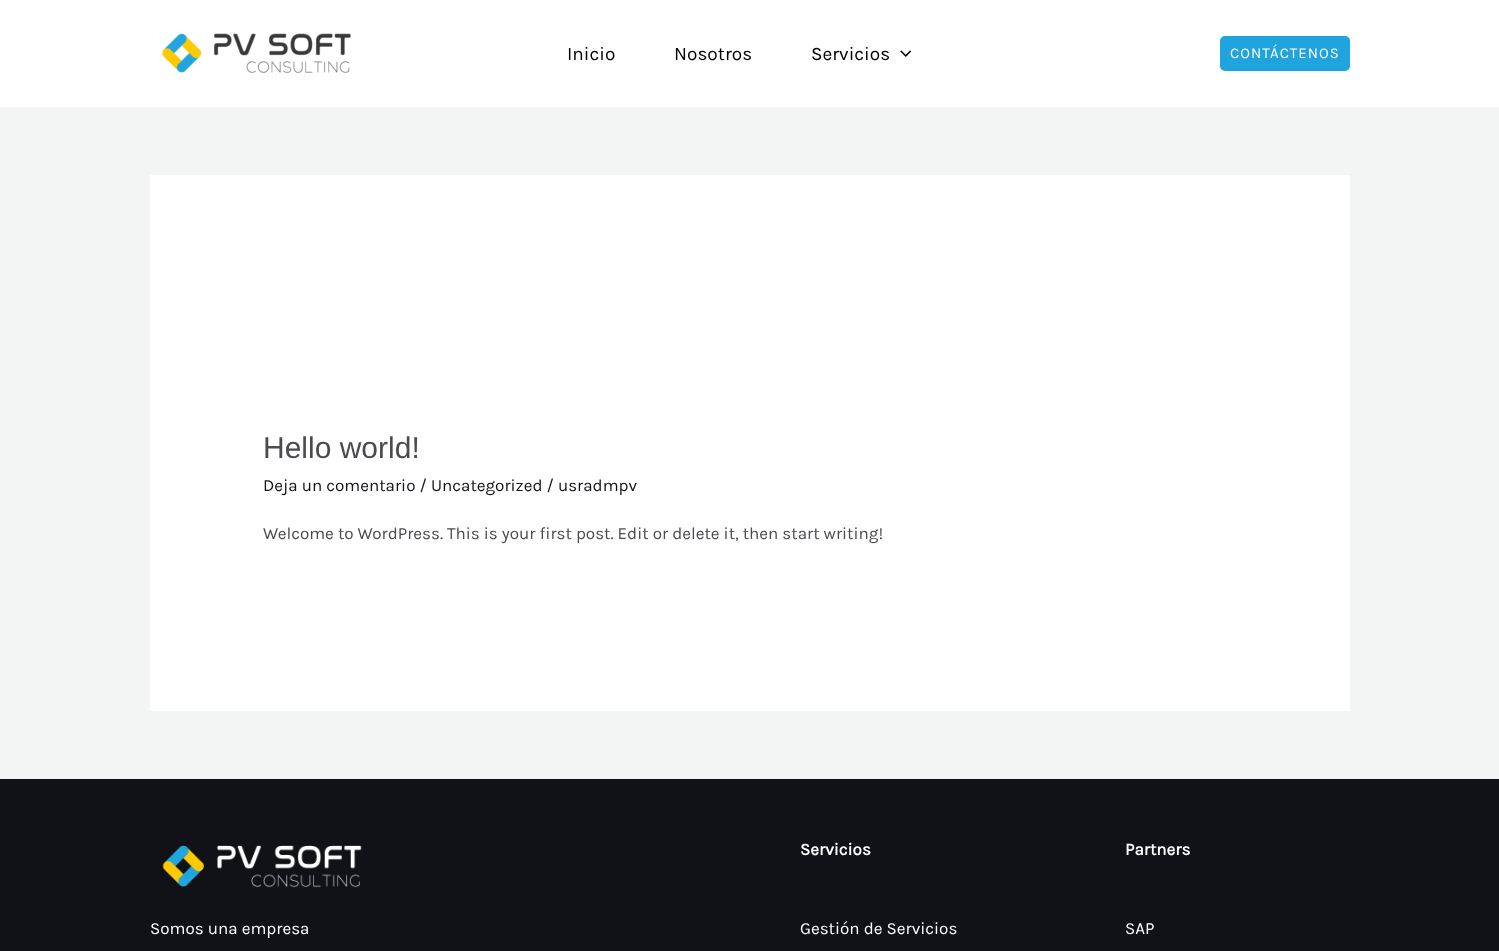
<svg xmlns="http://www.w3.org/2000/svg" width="1499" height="951">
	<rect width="100%" height="100%" fill="#F3F5F5" />
	<rect x="0" y="0" width="1499" height="107" fill="#FFFFFF" />
	<image x="162" y="33" width="189" height="40" href="assets/img1.png" />
	<g font-family="Karla" font-size="19" fill="#000000">
		<text x="567" y="60">Inicio</text>
		<text x="674" y="60">Nosotros</text>
		<text x="811" y="60">Servicios</text>
	</g>
	<image x="900" y="50" width="12" height="7" href="assets/img2.png" />
	<rect x="1220" y="36" width="130" height="35" rx="5" fill="#1FA4DE" />
	<text x="1230" y="58" font-family="Karla" font-size="15" letter-spacing="1" fill="#FFFFFF">CONTÁCTENOS</text>
	<rect x="150" y="175" width="1200" height="536" fill="#FFFFFF" />
	<text x="263" y="458" font-family="Liberation Sans" font-size="30" fill="#494B51">Hello world!</text>
	<text x="263" y="491" font-family="Karla" font-size="17" fill="#101218">Deja un comentario / Uncategorized / usradmpv</text>
	<text x="263" y="539" font-family="Karla" font-size="17" fill="#494B51">Welcome to WordPress. This is your first post. Edit or delete it, then start writing!</text>
	<rect x="0" y="779" width="1499" height="172" fill="#101218" />
	<image x="162" y="845" width="200" height="43" href="assets/img3.png" />
	<text x="150" y="934" font-family="Karla" font-size="17" fill="#FFFFFF">Somos una empresa</text>
	<text x="800" y="855" font-family="Karla" font-size="17" font-weight="700" fill="#FFFFFF">Servicios</text>
	<text x="800" y="934" font-family="Karla" font-size="17" fill="#FFFFFF">Gestión de Servicios</text>
	<text x="1125" y="855" font-family="Karla" font-size="17" font-weight="700" fill="#FFFFFF">Partners</text>
	<text x="1125" y="934" font-family="Karla" font-size="17" fill="#FFFFFF">SAP</text>
</svg>
